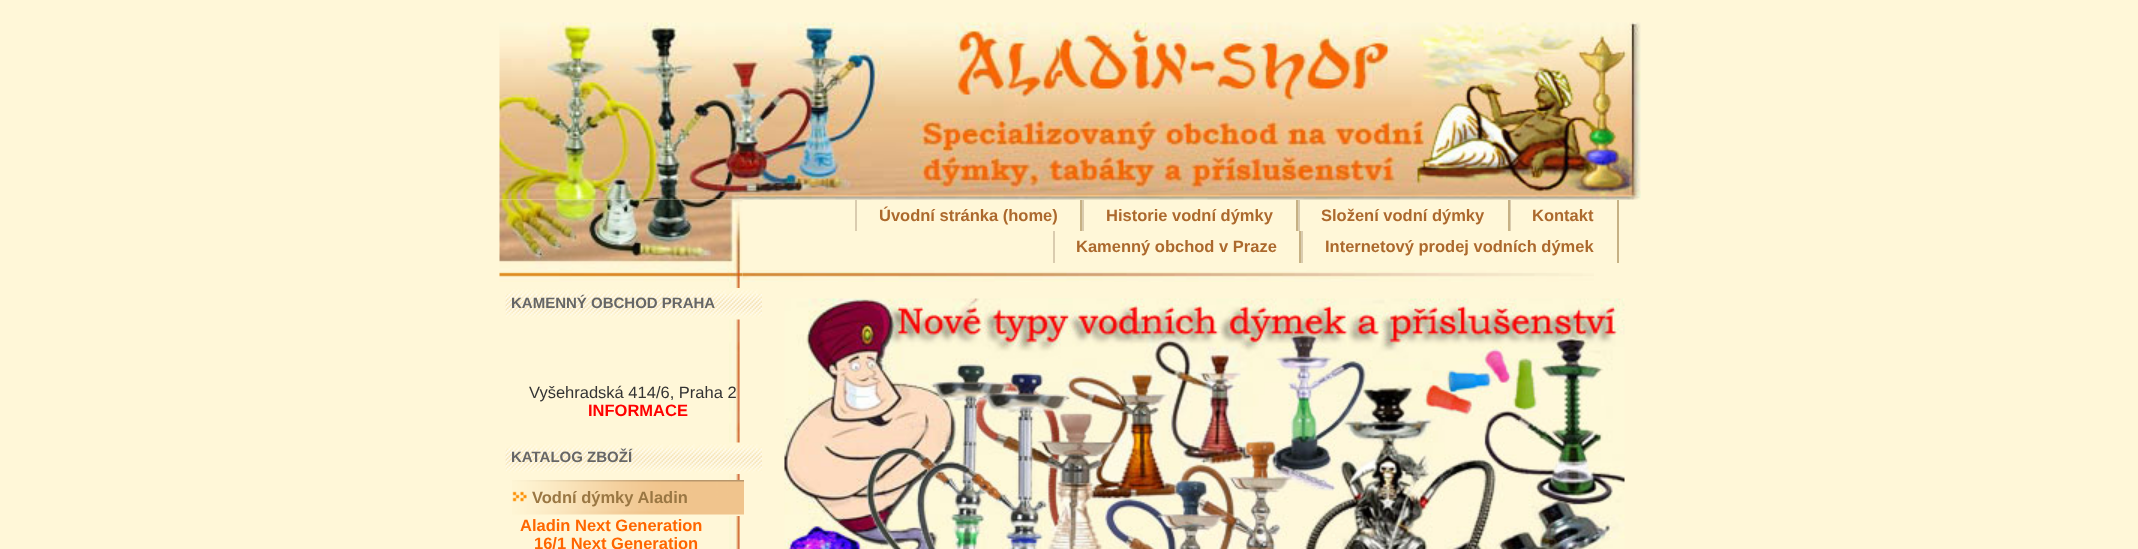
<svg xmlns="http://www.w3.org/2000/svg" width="2138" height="549">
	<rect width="100%" height="100%" fill="#FFF7D8" />
	<image x="499" y="22" width="1142" height="178" href="assets/img1.png" />
	<image x="499" y="199" width="244" height="71" href="assets/img2.png" />
	<rect x="1080" y="200" width="2" height="31" fill="#C6B184" />
	<rect x="855" y="200" width="2" height="31" fill="#DACCAF" />
	<text x="879" y="221" font-family="Liberation Sans" font-size="16.5" font-weight="700" fill="#AC692D">Úvodní stránka (home)</text>
	<rect x="1296" y="200" width="2" height="31" fill="#C6B184" />
	<rect x="1082" y="200" width="2" height="31" fill="#DACCAF" />
	<text x="1106" y="221" font-family="Liberation Sans" font-size="16.5" font-weight="700" fill="#AC692D">Historie vodní dýmky</text>
	<rect x="1508" y="200" width="2" height="31" fill="#C6B184" />
	<rect x="1298" y="200" width="2" height="31" fill="#DACCAF" />
	<text x="1321" y="221" font-family="Liberation Sans" font-size="16.5" font-weight="700" fill="#AC692D">Složení vodní dýmky</text>
	<rect x="1617" y="200" width="2" height="63" fill="#C6B184" />
	<rect x="1510" y="200" width="1" height="31" fill="#DACCAF" />
	<text x="1532" y="221" font-family="Liberation Sans" font-size="16.5" font-weight="700" fill="#AC692D">Kontakt</text>
	<rect x="1299" y="231" width="2" height="32" fill="#C6B184" />
	<rect x="1053" y="231" width="2" height="32" fill="#DACCAF" />
	<text x="1076" y="252" font-family="Liberation Sans" font-size="16.5" font-weight="700" fill="#AC692D">Kamenný obchod v Praze</text>
	<rect x="1301" y="231" width="2" height="32" fill="#DACCAF" />
	<text x="1325" y="252" font-family="Liberation Sans" font-size="16.5" font-weight="700" fill="#AC692D">Internetový prodej vodních dýmek</text>
	<image x="499" y="270" width="244" height="12" href="assets/img3.png" />
	<image x="742" y="270" width="852" height="12" href="assets/img4.png" />
	<image x="729" y="282" width="11" height="267" href="assets/img5.png" />
	<image x="505" y="288" width="257" height="32" href="assets/img6.png" />
	<text x="511" y="308" font-family="Liberation Sans" font-size="15" font-weight="700" fill="#666666">KAMENNÝ OBCHOD PRAHA</text>
	<text x="529" y="398" font-family="Liberation Sans" font-size="16.5" fill="#333333">Vyšehradská 414/6, Praha 2</text>
	<text x="588" y="416" font-family="Liberation Sans" font-size="16.5" font-weight="700" fill="#FF0000">INFORMACE</text>
	<image x="505" y="442" width="257" height="32" href="assets/img7.png" />
	<text x="511" y="462" font-family="Liberation Sans" font-size="15" font-weight="700" fill="#666666">KATALOG ZBOŽÍ</text>
	<image x="512" y="480" width="232" height="36" href="assets/img8.png" />
	<text x="532" y="503" font-family="Liberation Sans" font-size="16.5" font-weight="700" fill="#9A7743">Vodní dýmky Aladin</text>
	<g font-family="Liberation Sans" font-size="16.5" font-weight="700" fill="#FF6600">
		<text x="520" y="531">Aladin Next Generation</text>
		<text x="534" y="549">16/1 Next Generation</text>
	</g>
	<image x="784" y="298" width="841" height="251" href="assets/img9.png" />
</svg>
